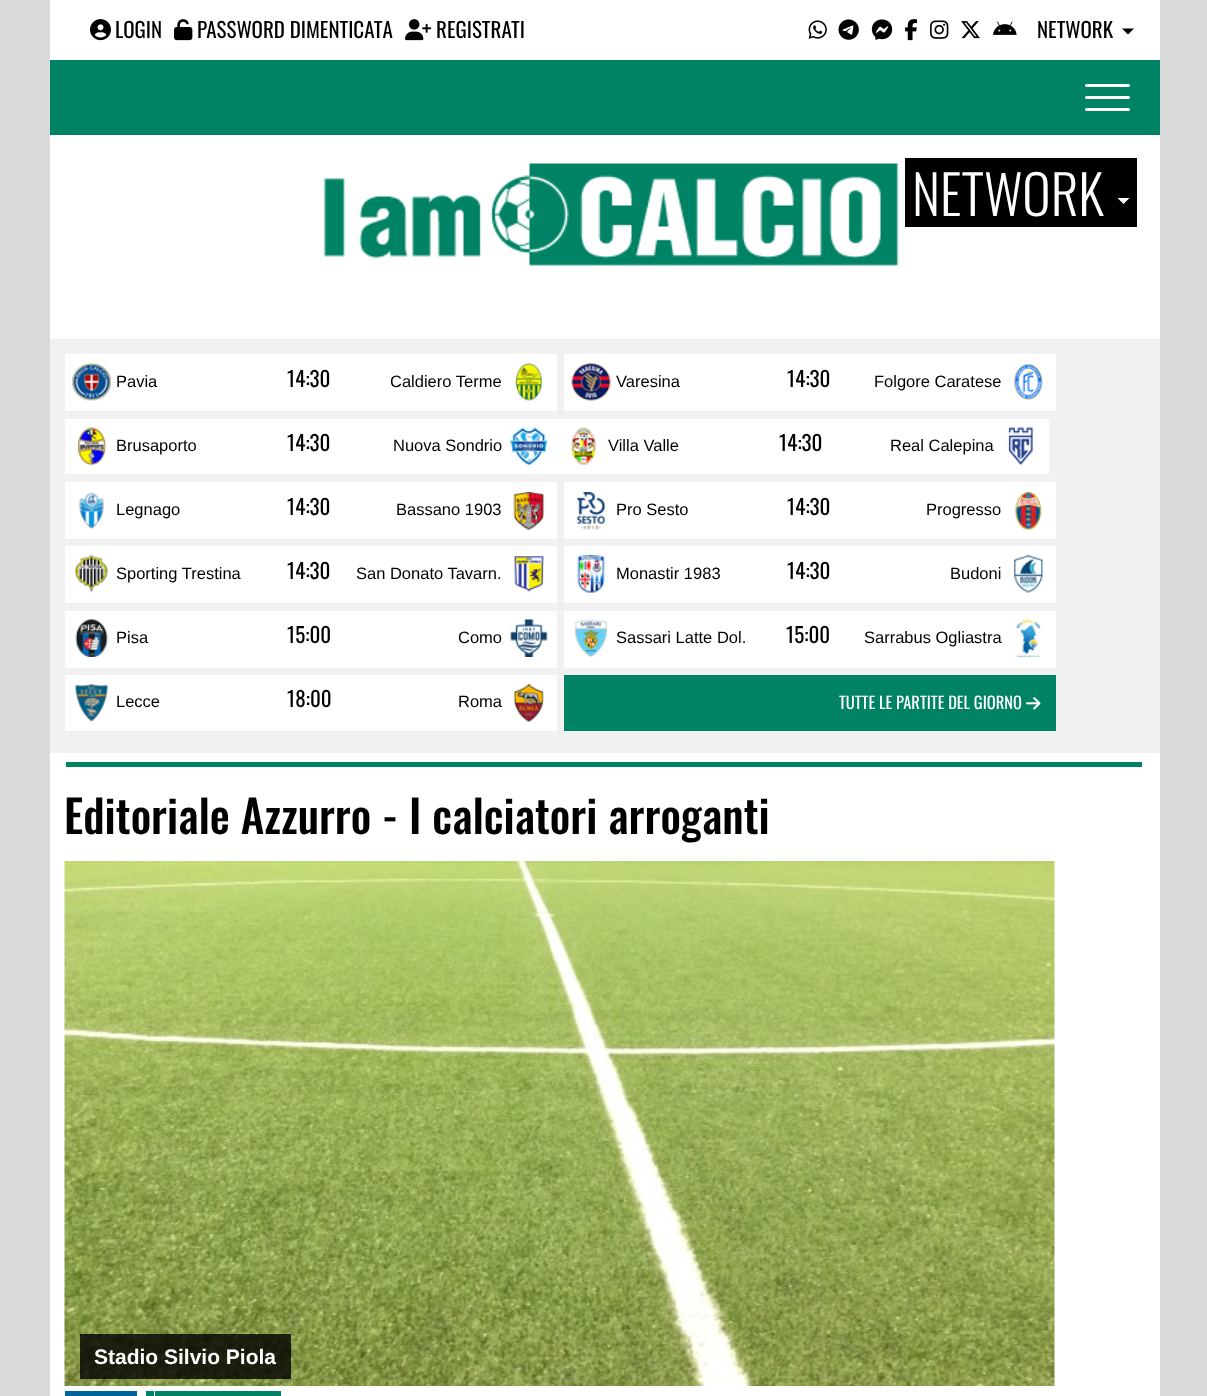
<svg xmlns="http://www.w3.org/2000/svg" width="1207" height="1396">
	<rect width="100%" height="100%" fill="#DADADA" />
	<rect x="50" y="0" width="1110" height="1396" fill="#FFFFFF" />
	<image x="90" y="19" width="21" height="22" href="assets/img1.png" />
	<text x="115" y="38" font-family="Oswald" font-size="21" fill="#000000">LOGIN</text>
	<image x="174" y="19" width="19" height="22" href="assets/img2.png" />
	<text x="197" y="38" font-family="Oswald" font-size="21" fill="#000000">PASSWORD DIMENTICATA</text>
	<image x="405" y="19" width="27" height="22" href="assets/img3.png" />
	<text x="436" y="38" font-family="Oswald" font-size="21" fill="#000000">REGISTRATI</text>
	<image x="808" y="20" width="19" height="19" href="assets/img4.png" />
	<image x="838" y="19" width="21" height="21" href="assets/img5.png" />
	<image x="871" y="19" width="22" height="21" href="assets/img6.png" />
	<image x="905" y="19" width="13" height="22" href="assets/img7.png" />
	<image x="930" y="20" width="19" height="19" href="assets/img8.png" />
	<image x="961" y="21" width="19" height="18" href="assets/img9.png" />
	<image x="993" y="21" width="24" height="14" href="assets/img10.png" />
	<text x="1037" y="38" font-family="Oswald" font-size="21" fill="#000000">NETWORK</text>
	<path d="M1122 28.5H1134L1128 34.5Z" fill="#000000" />
	<rect x="50" y="60" width="1110" height="75" fill="#008264" />
	<rect x="1085" y="84" width="45" height="3" rx="1.5" fill="#FFFFFF" />
	<rect x="1085" y="96" width="45" height="3" rx="1.5" fill="#FFFFFF" />
	<rect x="1085" y="108" width="45" height="3" rx="1.5" fill="#FFFFFF" />
	<image x="323" y="163" width="576" height="103" href="assets/img11.png" />
	<rect x="905" y="158" width="232" height="69" fill="#000000" />
	<text x="912" y="216" font-family="Oswald" font-size="54" font-weight="300" fill="#FFFFFF">NETWORK</text>
	<path d="M1117.5 198H1129.5L1123.5 204Z" fill="#FFFFFF" />
	<rect x="50" y="339" width="1110" height="414" fill="#F1F1F1" />
	<rect x="65" y="354" width="492" height="57" fill="#FFFFFF" />
	<image x="72" y="363" width="39" height="38" href="assets/img12.png" />
	<text x="116" y="387" font-family="Liberation Sans" font-size="16.5" fill="#000000">Pavia</text>
	<text x="287" y="387" font-family="Oswald" font-size="21" fill="#000000">14:30</text>
	<image x="515" y="363" width="28" height="38" href="assets/img13.png" />
	<text x="390" y="387" font-family="Liberation Sans" font-size="16.5" fill="#000000">Caldiero Terme</text>
	<rect x="564" y="354" width="492" height="57" fill="#FFFFFF" />
	<image x="571" y="363" width="40" height="38" href="assets/img14.png" />
	<text x="616" y="387" font-family="Liberation Sans" font-size="16.5" fill="#000000">Varesina</text>
	<text x="787" y="387" font-family="Oswald" font-size="21" fill="#000000">14:30</text>
	<image x="1014" y="364" width="29" height="36" href="assets/img15.png" />
	<text x="874" y="387" font-family="Liberation Sans" font-size="16.5" fill="#000000">Folgore Caratese</text>
	<rect x="65" y="419" width="984" height="55" fill="#FFFFFF" />
	<image x="77" y="427" width="30" height="38" href="assets/img16.png" />
	<text x="116" y="451" font-family="Liberation Sans" font-size="16.5" fill="#000000">Brusaporto</text>
	<text x="287" y="451" font-family="Oswald" font-size="21" fill="#000000">14:30</text>
	<image x="510" y="427" width="38" height="38" href="assets/img17.png" />
	<text x="393" y="451" font-family="Liberation Sans" font-size="16.5" fill="#000000">Nuova Sondrio</text>
	<image x="571" y="427" width="25" height="38" href="assets/img18.png" />
	<text x="608" y="451" font-family="Liberation Sans" font-size="16.5" fill="#000000">Villa Valle</text>
	<text x="779" y="451" font-family="Oswald" font-size="21" fill="#000000">14:30</text>
	<image x="1007" y="427" width="27" height="38" href="assets/img19.png" />
	<text x="890" y="451" font-family="Liberation Sans" font-size="16.5" fill="#000000">Real Calepina</text>
	<rect x="65" y="482" width="492" height="57" fill="#FFFFFF" />
	<image x="79" y="493" width="25" height="36" href="assets/img20.png" />
	<text x="116" y="515" font-family="Liberation Sans" font-size="16.5" fill="#000000">Legnago</text>
	<text x="287" y="515" font-family="Oswald" font-size="21" fill="#000000">14:30</text>
	<image x="513" y="492" width="32" height="38" href="assets/img21.png" />
	<text x="396" y="515" font-family="Liberation Sans" font-size="16.5" fill="#000000">Bassano 1903</text>
	<rect x="564" y="482" width="492" height="57" fill="#FFFFFF" />
	<image x="576" y="492" width="30" height="38" href="assets/img22.png" />
	<text x="616" y="515" font-family="Liberation Sans" font-size="16.5" fill="#000000">Pro Sesto</text>
	<text x="787" y="515" font-family="Oswald" font-size="21" fill="#000000">14:30</text>
	<image x="1015" y="492" width="27" height="38" href="assets/img23.png" />
	<text x="926" y="515" font-family="Liberation Sans" font-size="16.5" fill="#000000">Progresso</text>
	<rect x="65" y="546" width="492" height="57" fill="#FFFFFF" />
	<image x="74" y="555" width="34" height="38" href="assets/img24.png" />
	<text x="116" y="579" font-family="Liberation Sans" font-size="16.5" fill="#000000">Sporting Trestina</text>
	<text x="287" y="579" font-family="Oswald" font-size="21" fill="#000000">14:30</text>
	<image x="513" y="556" width="31" height="36" href="assets/img25.png" />
	<text x="356" y="579" font-family="Liberation Sans" font-size="16.5" fill="#000000">San Donato Tavarn.</text>
	<rect x="564" y="546" width="492" height="57" fill="#FFFFFF" />
	<image x="577" y="555" width="28" height="38" href="assets/img26.png" />
	<text x="616" y="579" font-family="Liberation Sans" font-size="16.5" fill="#000000">Monastir 1983</text>
	<text x="787" y="579" font-family="Oswald" font-size="21" fill="#000000">14:30</text>
	<image x="1013" y="555" width="31" height="38" href="assets/img27.png" />
	<text x="950" y="579" font-family="Liberation Sans" font-size="16.5" fill="#000000">Budoni</text>
	<rect x="65" y="611" width="492" height="57" fill="#FFFFFF" />
	<image x="75" y="619" width="33" height="38" href="assets/img28.png" />
	<text x="116" y="643" font-family="Liberation Sans" font-size="16.5" fill="#000000">Pisa</text>
	<text x="287" y="643" font-family="Oswald" font-size="21" fill="#000000">15:00</text>
	<image x="510" y="619" width="38" height="38" href="assets/img29.png" />
	<text x="458" y="643" font-family="Liberation Sans" font-size="16.5" fill="#000000">Como</text>
	<rect x="564" y="611" width="492" height="57" fill="#FFFFFF" />
	<image x="574" y="619" width="34" height="38" href="assets/img30.png" />
	<text x="616" y="643" font-family="Liberation Sans" font-size="16.5" fill="#000000">Sassari Latte Dol.</text>
	<text x="786" y="643" font-family="Oswald" font-size="21" fill="#000000">15:00</text>
	<image x="1015" y="619" width="26" height="38" href="assets/img31.png" />
	<text x="864" y="643" font-family="Liberation Sans" font-size="16.5" fill="#000000">Sarrabus Ogliastra</text>
	<rect x="65" y="675" width="492" height="56" fill="#FFFFFF" />
	<image x="74" y="684" width="35" height="38" href="assets/img32.png" />
	<text x="116" y="707" font-family="Liberation Sans" font-size="16.5" fill="#000000">Lecce</text>
	<text x="287" y="707" font-family="Oswald" font-size="21" fill="#000000">18:00</text>
	<image x="513" y="684" width="31" height="38" href="assets/img33.png" />
	<text x="458" y="707" font-family="Liberation Sans" font-size="16.5" fill="#000000">Roma</text>
	<rect x="564" y="675" width="492" height="56" fill="#008264" />
	<text x="839" y="709" font-family="Oswald" font-size="16.5" fill="#FFFFFF">TUTTE LE PARTITE DEL GIORNO</text>
	<image x="1026" y="697" width="15" height="13" href="assets/img34.png" />
	<rect x="66" y="762" width="1076" height="5" fill="#008264" />
	<text x="64" y="834" font-family="Oswald" font-size="45" font-weight="500" fill="#000000">Editoriale Azzurro - I calciatori arroganti</text>
	<image x="64" y="861" width="991" height="525" href="assets/img35.png" />
	<rect x="80" y="1334" width="211" height="45" fill="#000000" fill-opacity="0.8" />
	<text x="94" y="1364" font-family="Liberation Sans" font-size="21" font-weight="700" fill="#FFFFFF">Stadio Silvio Piola</text>
	<rect x="65" y="1391" width="9" height="5" fill="#006599" />
	<rect x="74" y="1391" width="63" height="5" fill="#006599" />
	<rect x="146" y="1391" width="8" height="5" fill="#008264" />
	<rect x="155" y="1391" width="126" height="5" fill="#008264" />
</svg>
